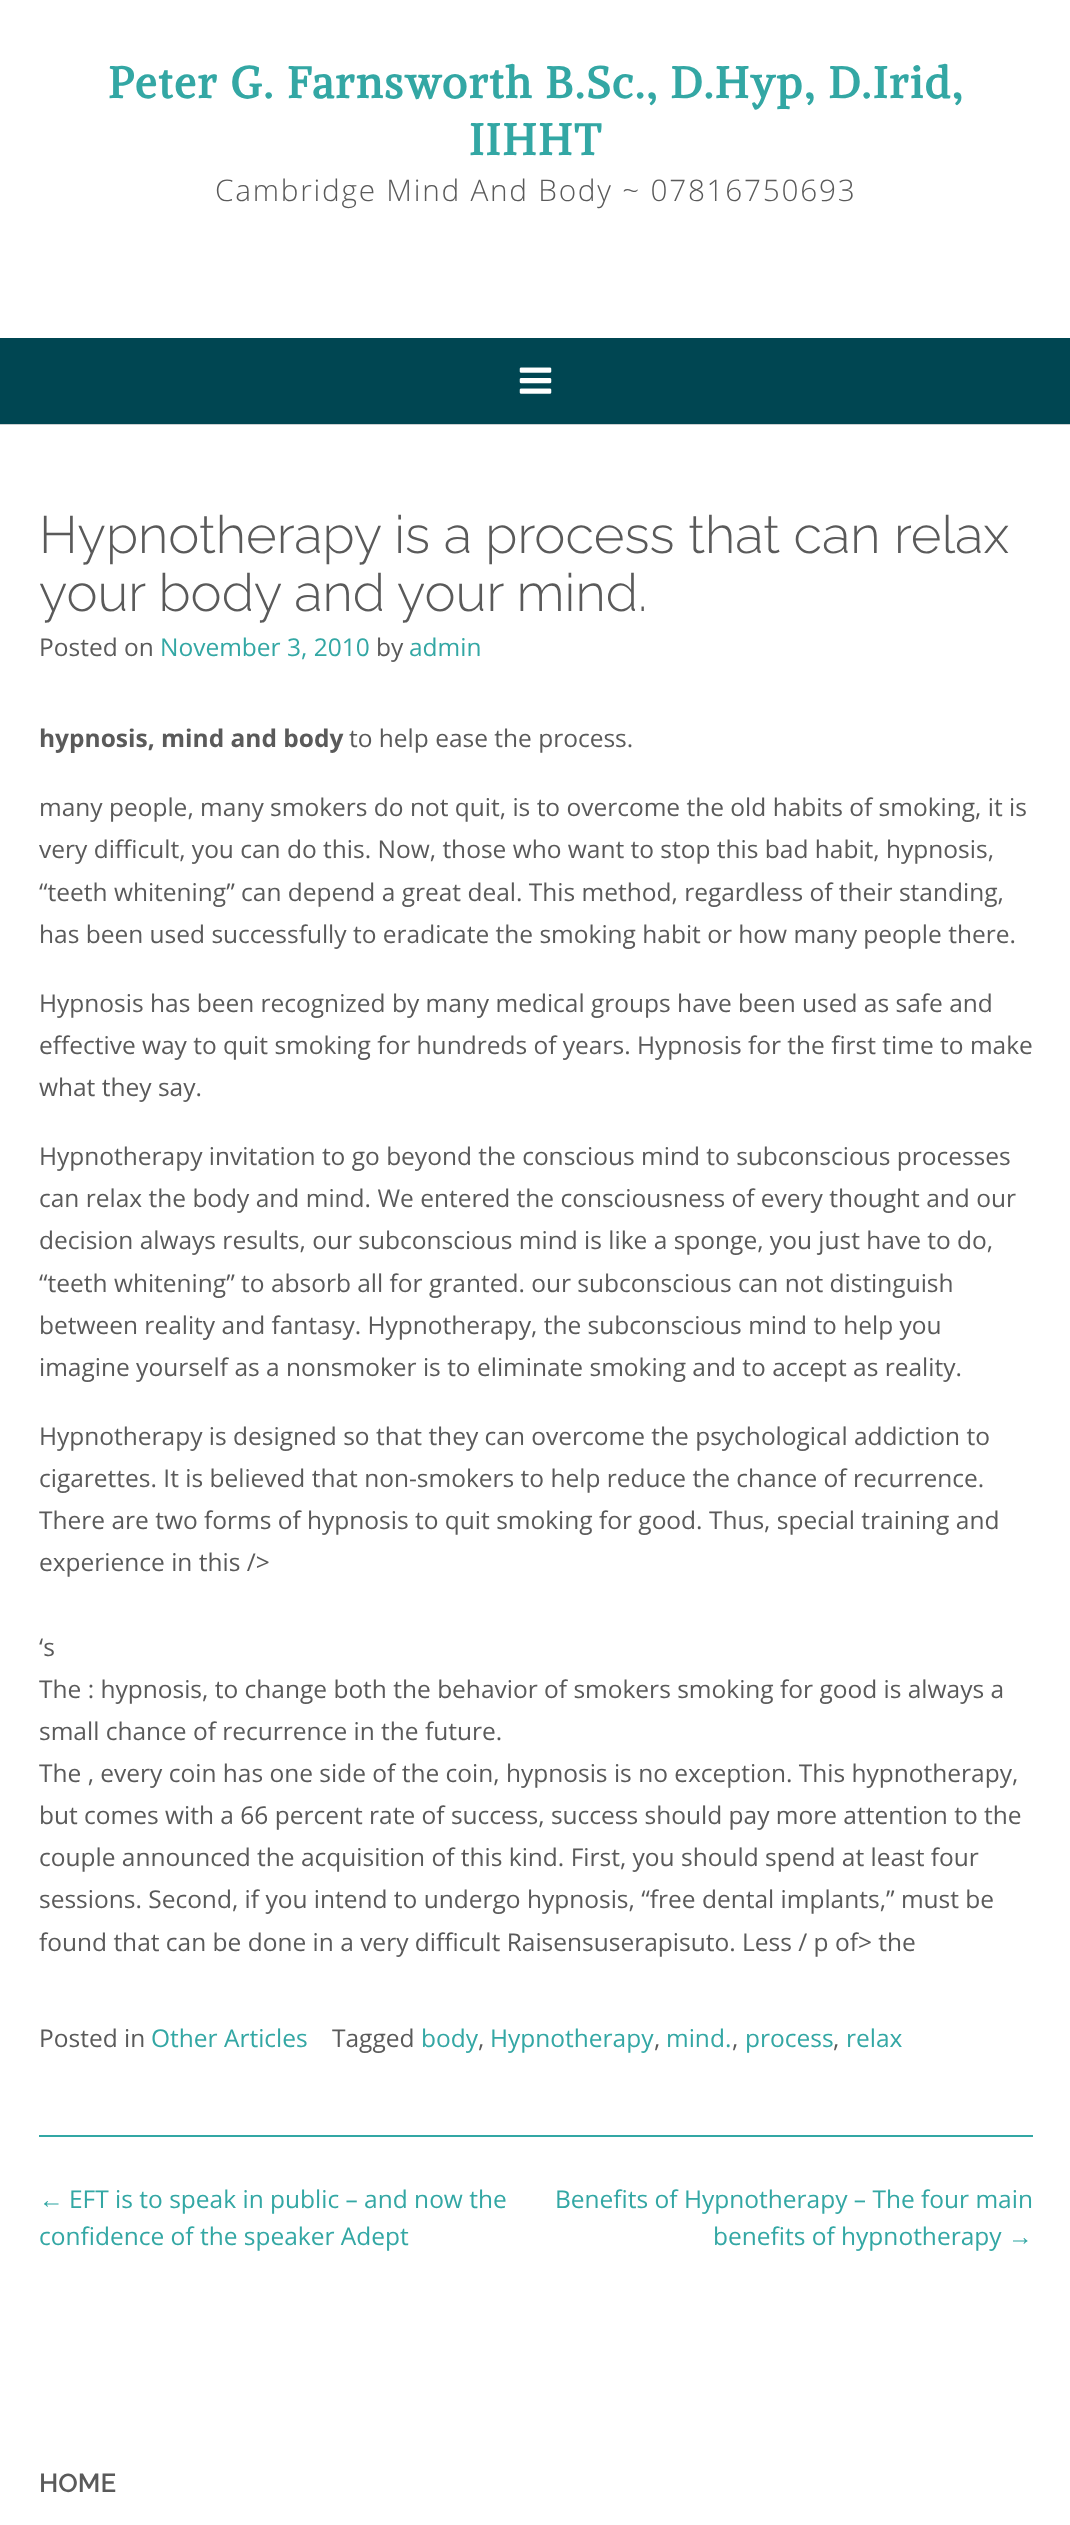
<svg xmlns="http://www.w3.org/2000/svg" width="1070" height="2525">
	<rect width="100%" height="100%" fill="#FFFFFF" />
	<g font-family="Alike" font-size="43.75" font-weight="700" letter-spacing="1.75" fill="#33A7A4">
		<text x="108" y="98">Peter G. Farnsworth B.Sc., D.Hyp, D.Irid,</text>
		<text x="469" y="155">IIHHT</text>
	</g>
	<text x="215" y="201" font-family="Open Sans" font-size="29.75" font-weight="300" letter-spacing="1.75" fill="#5A5A5A">Cambridge Mind And Body ~ 07816750693</text>
	<rect x="0" y="338" width="1070" height="86" fill="#004652" />
	<rect x="0" y="424" width="1070" height="1" fill="#CACFD0" />
	<image x="519" y="367" width="33" height="27" href="assets/img1.png" />
	<rect x="39" y="2135" width="994" height="2" fill="#33A7A4" />
	<g font-family="Raleway" font-size="52.5" font-weight="300" fill="#5A5A5A">
		<text x="39" y="553">Hypnotherapy is a process that can relax</text>
		<text x="39" y="611">your body and your mind.</text>
	</g>
	<text x="39" y="656" font-family="Open Sans" font-size="24.5" fill="#5A5A5A">Posted on</text>
	<text x="160" y="656" font-family="Open Sans" font-size="24.5" fill="#33A7A4">November 3, 2010</text>
	<text x="376" y="656" font-family="Open Sans" font-size="24.5" fill="#5A5A5A">by</text>
	<text x="409" y="656" font-family="Open Sans" font-size="24.5" fill="#33A7A4">admin</text>
	<text x="39" y="747" font-family="Open Sans" font-size="24.5" font-weight="700" fill="#5A5A5A">hypnosis, mind and body</text>
	<g font-family="Open Sans" font-size="24.5" fill="#5A5A5A">
		<text x="349" y="747">to help ease the process.</text>
		<text x="39" y="816">many people, many smokers do not quit, is to overcome the old habits of smoking, it is</text>
		<text x="39" y="858">very difficult, you can do this. Now, those who want to stop this bad habit, hypnosis,</text>
		<text x="39" y="901">“teeth whitening” can depend a great deal. This method, regardless of their standing,</text>
		<text x="39" y="943">has been used successfully to eradicate the smoking habit or how many people there.</text>
		<text x="39" y="1012">Hypnosis has been recognized by many medical groups have been used as safe and</text>
		<text x="39" y="1054">effective way to quit smoking for hundreds of years. Hypnosis for the first time to make</text>
		<text x="39" y="1096">what they say.</text>
		<text x="39" y="1165">Hypnotherapy invitation to go beyond the conscious mind to subconscious processes</text>
		<text x="39" y="1207">can relax the body and mind. We entered the consciousness of every thought and our</text>
		<text x="39" y="1249">decision always results, our subconscious mind is like a sponge, you just have to do,</text>
		<text x="39" y="1292">“teeth whitening” to absorb all for granted. our subconscious can not distinguish</text>
		<text x="39" y="1334">between reality and fantasy. Hypnotherapy, the subconscious mind to help you</text>
		<text x="39" y="1376">imagine yourself as a nonsmoker is to eliminate smoking and to accept as reality.</text>
		<text x="39" y="1445">Hypnotherapy is designed so that they can overcome the psychological addiction to</text>
		<text x="39" y="1487">cigarettes. It is believed that non-smokers to help reduce the chance of recurrence.</text>
		<text x="39" y="1529">There are two forms of hypnosis to quit smoking for good. Thus, special training and</text>
		<text x="39" y="1571">experience in this /&gt;</text>
		<text x="39" y="1656">‘s</text>
		<text x="39" y="1698">The : hypnosis, to change both the behavior of smokers smoking for good is always a</text>
		<text x="39" y="1740">small chance of recurrence in the future.</text>
		<text x="39" y="1782">The , every coin has one side of the coin, hypnosis is no exception. This hypnotherapy,</text>
		<text x="39" y="1824">but comes with a 66 percent rate of success, success should pay more attention to the</text>
		<text x="39" y="1866">couple announced the acquisition of this kind. First, you should spend at least four</text>
		<text x="39" y="1908">sessions. Second, if you intend to undergo hypnosis, “free dental implants,” must be</text>
		<text x="39" y="1951">found that can be done in a very difficult Raisensuserapisuto. Less / p of&gt; the</text>
		<text x="39" y="2047">Posted in</text>
	</g>
	<text x="151" y="2047" font-family="Open Sans" font-size="24.5" fill="#33A7A4">Other Articles</text>
	<text x="332" y="2047" font-family="Open Sans" font-size="24.5" fill="#5A5A5A">Tagged</text>
	<text x="421" y="2047" font-family="Open Sans" font-size="24.5" fill="#33A7A4">body</text>
	<text x="478" y="2047" font-family="Open Sans" font-size="24.5" fill="#5A5A5A">,</text>
	<text x="490" y="2047" font-family="Open Sans" font-size="24.5" fill="#33A7A4">Hypnotherapy</text>
	<text x="654" y="2047" font-family="Open Sans" font-size="24.5" fill="#5A5A5A">,</text>
	<text x="666" y="2047" font-family="Open Sans" font-size="24.5" fill="#33A7A4">mind.</text>
	<text x="732" y="2047" font-family="Open Sans" font-size="24.5" fill="#5A5A5A">,</text>
	<text x="745" y="2047" font-family="Open Sans" font-size="24.5" fill="#33A7A4">process</text>
	<text x="833" y="2047" font-family="Open Sans" font-size="24.5" fill="#5A5A5A">,</text>
	<text x="846" y="2047" font-family="Open Sans" font-size="24.5" fill="#33A7A4">relax</text>
	<text x="39" y="2208" font-family="Liberation Sans" font-size="24.5" fill="#33A7A4">←</text>
	<g font-family="Open Sans" font-size="24.5" fill="#33A7A4">
		<text x="69" y="2208">EFT is to speak in public – and now the</text>
		<text x="39" y="2245">confidence of the speaker Adept</text>
		<text x="555" y="2208">Benefits of Hypnotherapy – The four main</text>
		<text x="713" y="2245">benefits of hypnotherapy</text>
	</g>
	<text x="1008" y="2245" font-family="Liberation Sans" font-size="24.5" fill="#33A7A4">→</text>
	<text x="39" y="2492" font-family="Raleway" font-size="26" font-weight="600" fill="#5A5A5A">HOME</text>
</svg>
